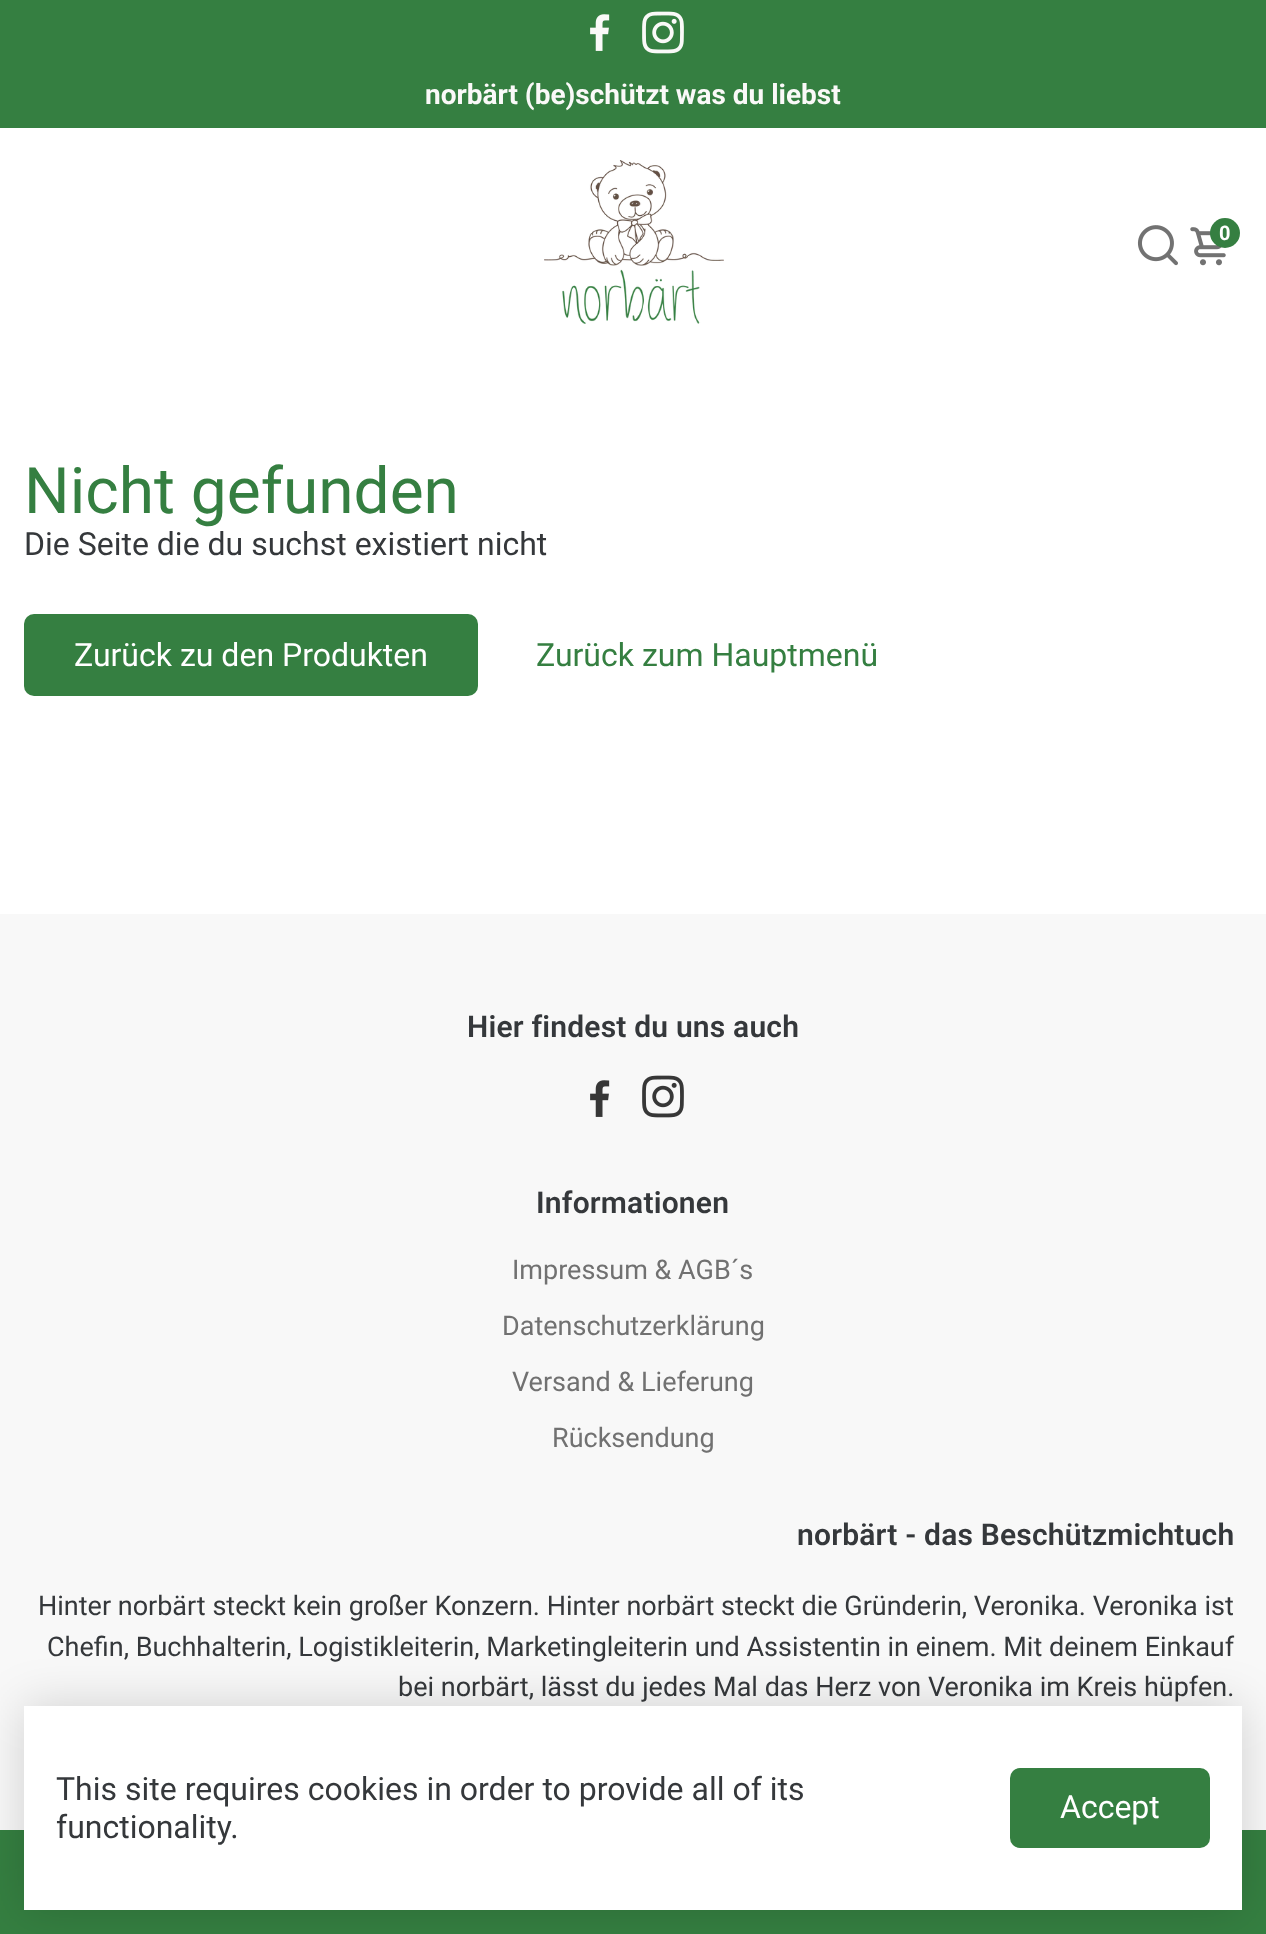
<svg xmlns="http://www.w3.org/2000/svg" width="1266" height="1934">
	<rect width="100%" height="100%" fill="#FFFFFF" />
	<rect x="0" y="0" width="1266" height="128" fill="#357F41" />
	<image x="590" y="14" width="20" height="37" href="assets/img1.png" />
	<image x="642" y="11" width="42" height="43" href="assets/img2.png" />
	<text x="425" y="104" font-family="Roboto" font-size="28" font-weight="700" fill="#FAF9F8">norbärt (be)schützt was du liebst</text>
	<image x="544" y="160" width="180" height="164" href="assets/img3.png" />
	<image x="1137" y="225" width="41" height="41" href="assets/img4.png" />
	<image x="1190" y="227" width="36" height="39" href="assets/img5.png" />
	<circle cx="1225" cy="233" r="15" fill="#357F41" />
	<text x="1219" y="240" font-family="Roboto" font-size="20" font-weight="700" fill="#FFFFFF">0</text>
	<text x="24" y="513" font-family="Roboto" font-size="64" fill="#357F41">Nicht gefunden</text>
	<text x="24" y="555" font-family="Roboto" font-size="32" fill="#35383B">Die Seite die du suchst existiert nicht</text>
	<rect x="24" y="614" width="454" height="82" rx="10" fill="#357F41" />
	<text x="74" y="666" font-family="Roboto" font-size="32" fill="#FFFFFF">Zurück zu den Produkten</text>
	<text x="536" y="666" font-family="Roboto" font-size="32" fill="#357F41">Zurück zum Hauptmenü</text>
	<rect x="0" y="914" width="1266" height="916" fill="#F8F8F8" />
	<text x="467" y="1037" font-family="Roboto" font-size="30" font-weight="600" letter-spacing="0.2" fill="#35383B">Hier findest du uns auch</text>
	<image x="590" y="1080" width="20" height="37" href="assets/img6.png" />
	<image x="642" y="1075" width="42" height="43" href="assets/img7.png" />
	<text x="536" y="1213" font-family="Roboto" font-size="30" font-weight="600" letter-spacing="0.2" fill="#35383B">Informationen</text>
	<g font-family="Roboto" font-size="27" fill="#717171">
		<text x="512" y="1279">Impressum &amp; AGB´s</text>
		<text x="502" y="1335">Datenschutzerklärung</text>
		<text x="512" y="1391">Versand &amp; Lieferung</text>
		<text x="552" y="1447">Rücksendung</text>
	</g>
	<text x="797" y="1545" font-family="Roboto" font-size="30" font-weight="600" letter-spacing="0.2" fill="#35383B">norbärt - das Beschützmichtuch</text>
	<g font-family="Roboto" font-size="27" fill="#35383B">
		<text x="38" y="1615">Hinter norbärt steckt kein großer Konzern. Hinter norbärt steckt die Gründerin, Veronika. Veronika ist</text>
		<text x="47" y="1656">Chefin, Buchhalterin, Logistikleiterin, Marketingleiterin und Assistentin in einem. Mit deinem Einkauf</text>
		<text x="398" y="1696">bei norbärt, lässt du jedes Mal das Herz von Veronika im Kreis hüpfen.</text>
	</g>
	<rect x="0" y="1830" width="1266" height="104" fill="#357F41" />
	<rect x="24" y="1706" width="1218" height="204" fill="#000000" fill-opacity="0.16" filter="blur(24px)" />
	<rect x="24" y="1706" width="1218" height="204" fill="#FFFFFF" />
	<g font-family="Roboto" font-size="32" fill="#35383B">
		<text x="56" y="1800">This site requires cookies in order to provide all of its</text>
		<text x="56" y="1838">functionality.</text>
	</g>
	<rect x="1010" y="1768" width="200" height="80" rx="10" fill="#357F41" />
	<text x="1060" y="1818" font-family="Roboto" font-size="32" fill="#FFFFFF">Accept</text>
</svg>
